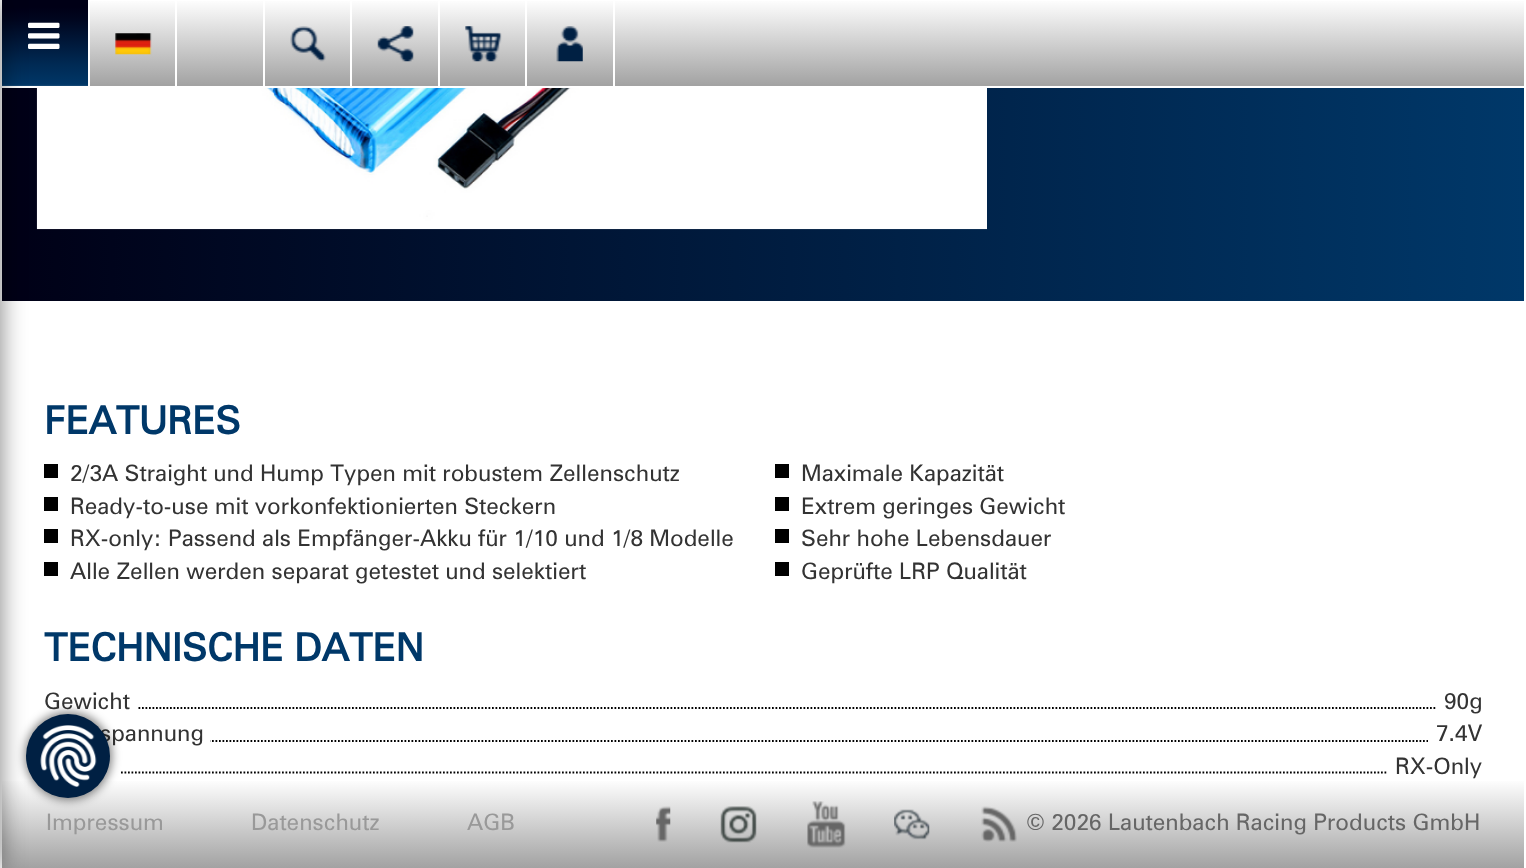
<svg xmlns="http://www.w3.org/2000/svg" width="1526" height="868">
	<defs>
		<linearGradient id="g1" gradientUnits="userSpaceOnUse" x1="45" y1="0" x2="45" y2="86"><stop offset="0" stop-color="#000016" /><stop offset="0.08" stop-color="#000016" /><stop offset="0.23" stop-color="#00061F" /><stop offset="0.75" stop-color="#002A54" /><stop offset="0.98" stop-color="#003666" /><stop offset="1" stop-color="#194B76" /></linearGradient>
		<linearGradient id="g2" gradientUnits="userSpaceOnUse" x1="1.8" y1="-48" x2="1524" y2="-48"><stop offset="0" stop-color="#000016" /><stop offset="1" stop-color="#003869" /></linearGradient>
		<linearGradient id="g3" gradientUnits="userSpaceOnUse" x1="763" y1="780" x2="763" y2="868"><stop offset="0" stop-color="#FEFEFE" /><stop offset="1" stop-color="#A2A2A2" /></linearGradient>
		<linearGradient id="g4" gradientUnits="userSpaceOnUse" x1="763" y1="0" x2="763" y2="86"><stop offset="0" stop-color="#FEFEFE" /><stop offset="1" stop-color="#A2A2A2" /></linearGradient>
	</defs>
	<rect width="100%" height="100%" fill="#FFFFFF" />
	<rect x="2" y="0" width="86" height="86" fill="url(#g1)" />
	<image x="28" y="22" width="32" height="27" href="assets/img1.png" />
	<rect x="2" y="88" width="1522" height="213" fill="url(#g2)" />
	<image x="36" y="88" width="951" height="142" href="assets/img7.png" />
	<rect x="2" y="781" width="1522" height="87" fill="url(#g3)" />
	<rect x="-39" y="0" width="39" height="868" fill="#000000" fill-opacity="0.5" filter="blur(13px)" />
	<rect x="90" y="1" width="1434" height="83" fill="url(#g4)" />
	<rect x="90" y="84" width="1434" height="2" fill="#A3A3A3" />
	<rect x="175" y="0" width="2" height="86" fill="#FFFFFF" />
	<image x="115" y="33" width="37" height="22" href="assets/img2.png" />
	<rect x="263" y="0" width="2" height="86" fill="#FFFFFF" />
	<rect x="350" y="0" width="2" height="86" fill="#FFFFFF" />
	<image x="290" y="26" width="36" height="36" href="assets/img3.png" />
	<rect x="438" y="0" width="2" height="86" fill="#FFFFFF" />
	<image x="377" y="26" width="37" height="36" href="assets/img4.png" />
	<rect x="525" y="0" width="2" height="86" fill="#FFFFFF" />
	<image x="465" y="26" width="37" height="36" href="assets/img5.png" />
	<rect x="613" y="0" width="2" height="86" fill="#FFFFFF" />
	<image x="556" y="26" width="27" height="36" href="assets/img6.png" />
	<text x="44" y="434" font-family="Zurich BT" font-size="38.5" font-weight="700" fill="#003869">FEATURES</text>
	<rect x="44" y="464" width="14" height="14" fill="#000000" />
	<text x="70" y="481" font-family="Zurich BT" font-size="22.75" fill="#333333">2/3A Straight und Hump Typen mit robustem Zellenschutz</text>
	<rect x="775" y="464" width="14" height="14" fill="#000000" />
	<text x="801" y="481" font-family="Zurich BT" font-size="22.75" fill="#333333">Maximale Kapazität</text>
	<rect x="44" y="497" width="14" height="14" fill="#000000" />
	<text x="70" y="514" font-family="Zurich BT" font-size="22.75" fill="#333333">Ready-to-use mit vorkonfektionierten Steckern</text>
	<rect x="775" y="497" width="14" height="14" fill="#000000" />
	<text x="801" y="514" font-family="Zurich BT" font-size="22.75" fill="#333333">Extrem geringes Gewicht</text>
	<rect x="44" y="529" width="14" height="14" fill="#000000" />
	<text x="70" y="546" font-family="Zurich BT" font-size="22.75" fill="#333333">RX-only: Passend als Empfänger-Akku für 1/10 und 1/8 Modelle</text>
	<rect x="775" y="529" width="14" height="14" fill="#000000" />
	<text x="801" y="546" font-family="Zurich BT" font-size="22.75" fill="#333333">Sehr hohe Lebensdauer</text>
	<rect x="44" y="562" width="14" height="14" fill="#000000" />
	<text x="70" y="579" font-family="Zurich BT" font-size="22.75" fill="#333333">Alle Zellen werden separat getestet und selektiert</text>
	<rect x="775" y="562" width="14" height="14" fill="#000000" />
	<text x="801" y="579" font-family="Zurich BT" font-size="22.75" fill="#333333">Geprüfte LRP Qualität</text>
	<text x="44" y="661" font-family="Zurich BT" font-size="38.5" font-weight="700" fill="#003869">TECHNISCHE DATEN</text>
	<path d="M44 708H1482" fill="none" stroke="#000000" stroke-width="1.8" stroke-dasharray="1.75 1.75" />
	<rect x="44" y="707" width="93" height="2" fill="#FFFFFF" />
	<text x="44" y="709" font-family="Zurich BT" font-size="22.75" fill="#333333">Gewicht</text>
	<rect x="1437" y="707" width="44" height="2" fill="#FFFFFF" />
	<text x="1444" y="709" font-family="Zurich BT" font-size="22.75" fill="#333333">90g</text>
	<path d="M44 741H1482" fill="none" stroke="#000000" stroke-width="1.8" stroke-dasharray="1.75 1.75" />
	<rect x="44" y="740" width="166" height="2" fill="#FFFFFF" />
	<text x="100" y="741" font-family="Zurich BT" font-size="22.75" fill="#333333">spannung</text>
	<rect x="1428" y="740" width="53" height="2" fill="#FFFFFF" />
	<text x="1436" y="741" font-family="Zurich BT" font-size="22.75" fill="#333333">7.4V</text>
	<path d="M44 772.5H1482" fill="none" stroke="#000000" stroke-width="1.8" stroke-dasharray="1.75 1.75" />
	<rect x="1388" y="771" width="93" height="3" fill="#FFFFFF" />
	<text x="1395" y="774" font-family="Zurich BT" font-size="22.75" fill="#333333">RX-Only</text>
	<rect x="101" y="771" width="19" height="3" fill="#FFFFFF" />
	<g font-family="Zurich BT" font-size="22.75" fill="#999999">
		<text x="46" y="830">Impressum</text>
		<text x="251" y="830">Datenschutz</text>
		<text x="467" y="830">AGB</text>
	</g>
	<image x="656" y="806" width="15" height="36" href="assets/img8.png" />
	<image x="720" y="806" width="37" height="37" href="assets/img9.png" />
	<image x="807" y="801" width="39" height="47" href="assets/img10.png" />
	<image x="894" y="809" width="36" height="31" href="assets/img11.png" />
	<image x="981" y="806" width="36" height="36" href="assets/img12.png" />
	<text x="1026" y="830" font-family="Zurich BT" font-size="22.75" fill="#666666">© 2026 Lautenbach Racing Products GmbH</text>
	<rect x="25" y="712" width="87" height="88" rx="43.5" fill="#000000" fill-opacity="0.5" filter="blur(5px)" />
	<circle cx="68" cy="756" r="42" fill="#002043" />
	<image x="40" y="725" width="57" height="62" href="assets/img13.png" />
</svg>
